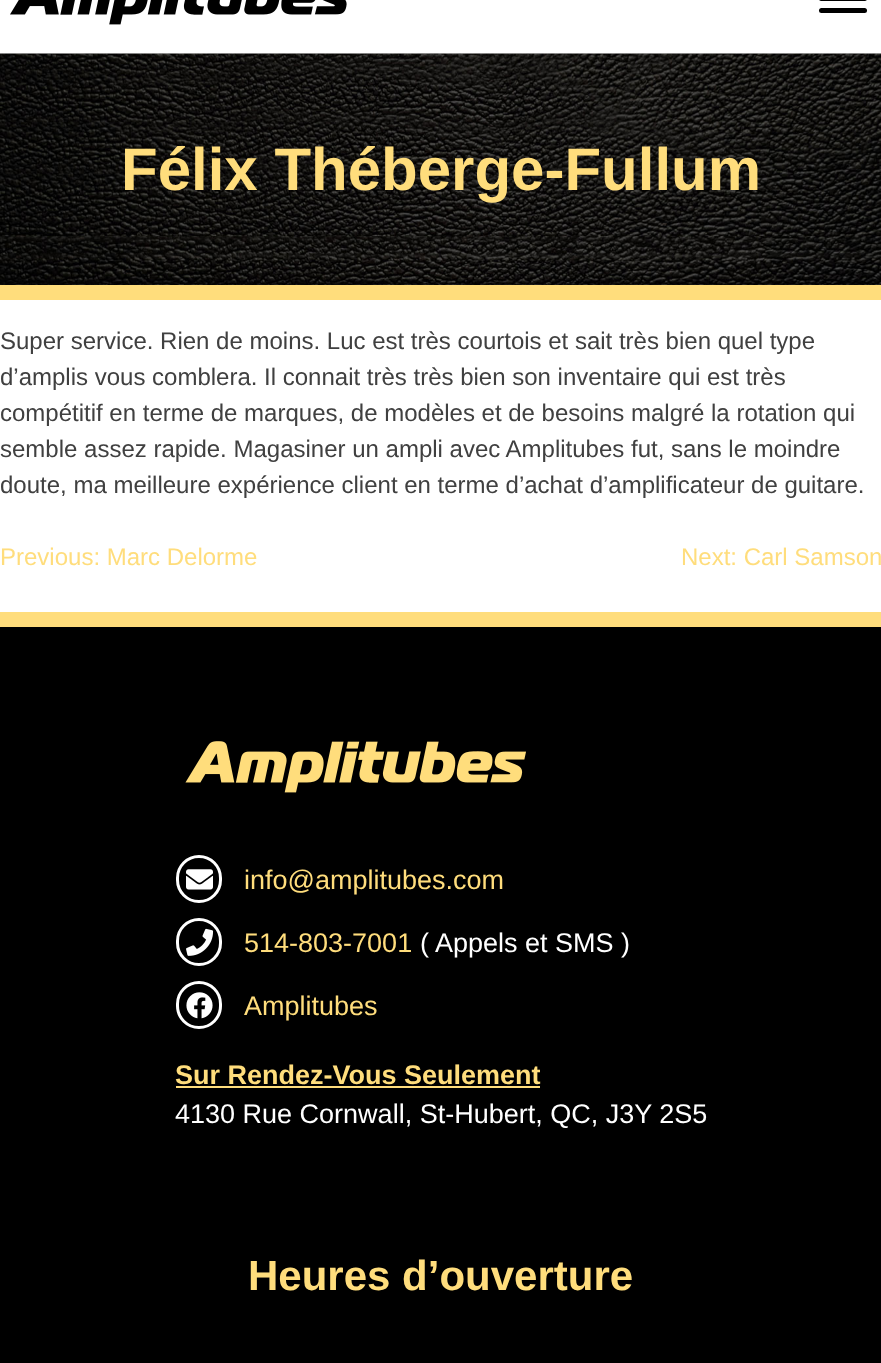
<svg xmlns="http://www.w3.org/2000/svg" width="881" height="1363">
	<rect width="100%" height="100%" fill="#FFFFFF" />
	<image x="10" y="0" width="337" height="25" href="assets/img1.png" />
	<rect x="819" y="-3" width="48" height="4" rx="2.5" fill="#000000" />
	<rect x="819" y="8" width="48" height="5" rx="2.5" fill="#000000" />
	<image x="0" y="53" width="881" height="232" href="assets/img2.png" />
	<rect x="0" y="285" width="881" height="15" fill="#FFDD7C" />
	<text x="121" y="190" font-family="Liberation Sans" font-size="60" font-weight="700" fill="#FFDD7C">Félix Théberge-Fullum</text>
	<g font-family="Liberation Sans" font-size="24" fill="#404040">
		<text x="0" y="349">Super service. Rien de moins. Luc est très courtois et sait très bien quel type</text>
		<text x="0" y="385">d’amplis vous comblera. Il connait très très bien son inventaire qui est très</text>
		<text x="0" y="421">compétitif en terme de marques, de modèles et de besoins malgré la rotation qui</text>
		<text x="0" y="457">semble assez rapide. Magasiner un ampli avec Amplitubes fut, sans le moindre</text>
		<text x="0" y="493">doute, ma meilleure expérience client en terme d’achat d’amplificateur de guitare.</text>
	</g>
	<g font-family="Liberation Sans" font-size="24" fill="#FFDD7C">
		<text x="0" y="565">Previous: Marc Delorme</text>
		<text x="681" y="565">Next: Carl Samson</text>
	</g>
	<rect x="0" y="627" width="881" height="736" fill="#000000" />
	<rect x="0" y="612" width="881" height="15" fill="#FFDD7C" />
	<image x="185" y="741" width="341" height="52" href="assets/img3.png" />
	<rect x="177.5" y="856.5" width="43" height="45" rx="21.5" fill="none" stroke="#FFFFFF" stroke-width="3" />
	<image x="186" y="869" width="27" height="21" href="assets/img4.png" />
	<text x="244" y="889" font-family="Liberation Sans" font-size="27" fill="#FFDD7C">info@amplitubes.com</text>
	<rect x="177.5" y="919.5" width="43" height="45" rx="21.5" fill="none" stroke="#FFFFFF" stroke-width="3" />
	<image x="186" y="928" width="28" height="28" href="assets/img5.png" />
	<text x="244" y="952" font-family="Liberation Sans" font-size="27" fill="#FFDD7C">514-803-7001</text>
	<text x="420" y="952" font-family="Liberation Sans" font-size="27" fill="#FFFFFF">( Appels et SMS )</text>
	<rect x="177.5" y="982.5" width="43" height="45" rx="21.5" fill="none" stroke="#FFFFFF" stroke-width="3" />
	<image x="186" y="992" width="27" height="27" href="assets/img6.png" />
	<text x="244" y="1015" font-family="Liberation Sans" font-size="27" fill="#FFDD7C">Amplitubes</text>
	<text x="175" y="1084" font-family="Liberation Sans" font-size="27" font-weight="700" fill="#FFDD7C">Sur Rendez-Vous Seulement</text>
	<rect x="176" y="1086" width="364" height="2" fill="#FFDD7C" />
	<text x="175" y="1123" font-family="Liberation Sans" font-size="27" fill="#FFFFFF">4130 Rue Cornwall, St-Hubert, QC, J3Y 2S5</text>
	<text x="248" y="1290" font-family="Liberation Sans" font-size="42" font-weight="700" fill="#FFDD7C">Heures d’ouverture</text>
</svg>
